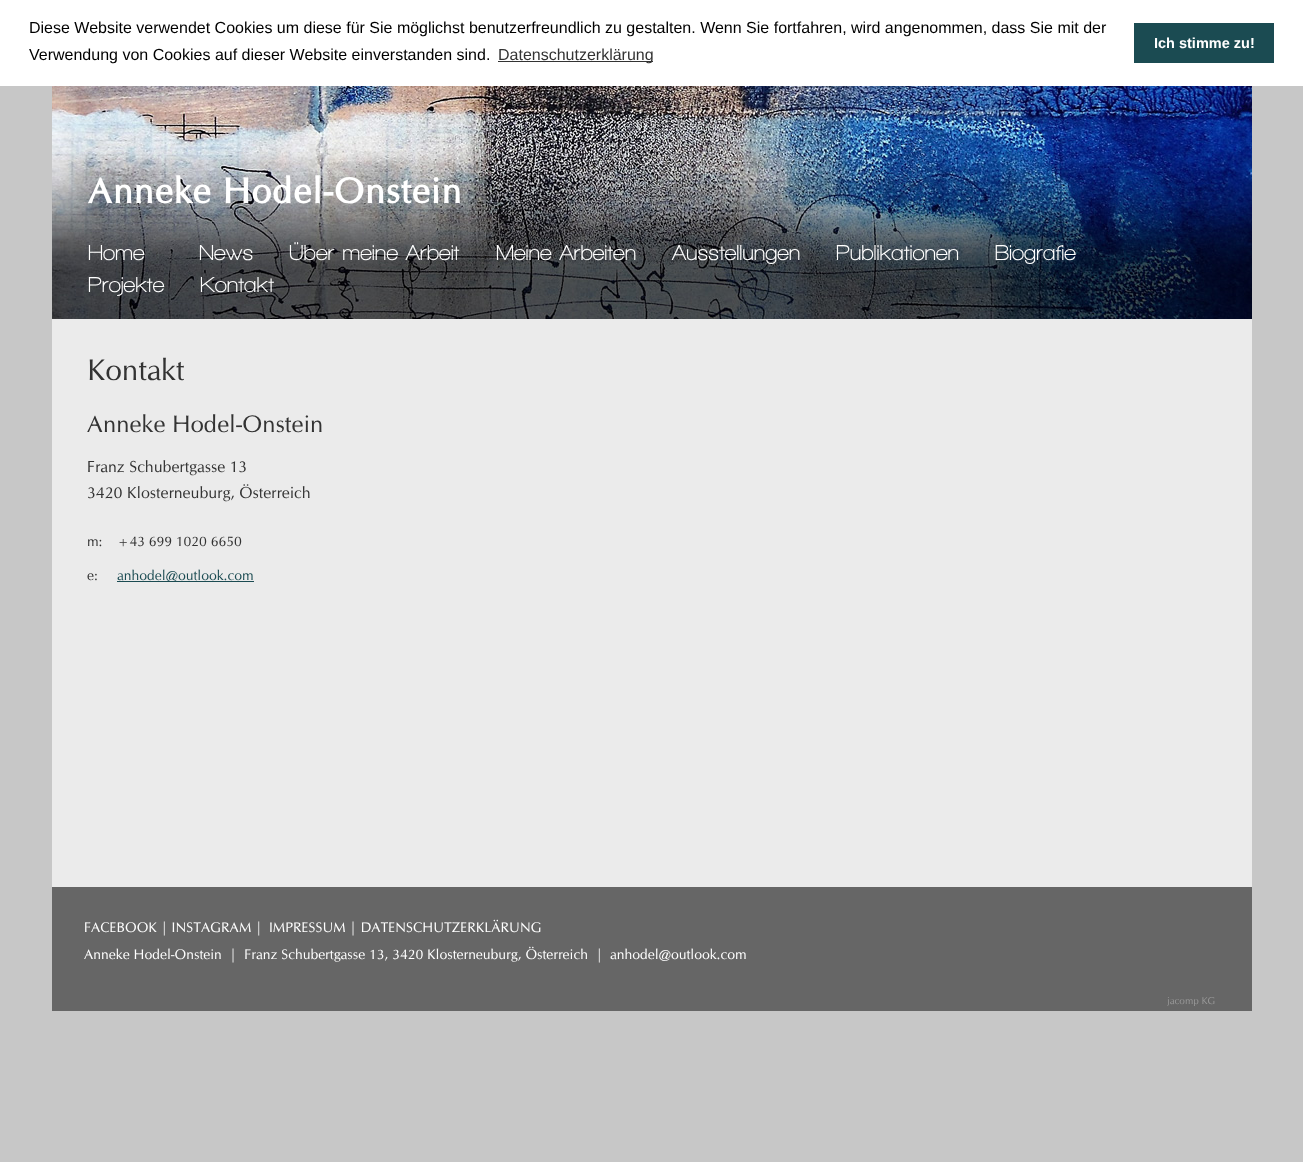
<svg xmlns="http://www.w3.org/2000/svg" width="1303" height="1162">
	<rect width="100%" height="100%" fill="#C7C7C7" />
	<rect x="0" y="0" width="1303" height="86" fill="#FFFFFF" />
	<g font-family="Liberation Sans" font-size="16" fill="#000000">
		<text x="29" y="33">Diese Website verwendet Cookies um diese für Sie möglichst benutzerfreundlich zu gestalten. Wenn Sie fortfahren, wird angenommen, dass Sie mit der</text>
		<text x="29" y="60">Verwendung von Cookies auf dieser Website einverstanden sind.</text>
	</g>
	<rect x="498" y="61" width="155" height="1" fill="#333333" />
	<text x="498" y="60" font-family="Liberation Sans" font-size="16" fill="#333333">Datenschutzerklärung</text>
	<rect x="1134" y="23" width="140" height="40" fill="#1B4B52" />
	<text x="1154" y="48" font-family="Liberation Sans" font-size="14.5" font-weight="700" fill="#FFFFFF">Ich stimme zu!</text>
	<image x="52" y="86" width="1200" height="233" href="assets/img1.png" />
	<text x="88" y="203" font-family="'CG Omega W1'" font-size="36" font-weight="700" letter-spacing="1" fill="#FFFFFF">Anneke Hodel-Onstein</text>
	<g font-family="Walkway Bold" font-size="22" font-weight="700" fill="#FFFFFF">
		<text x="88" y="260">Home</text>
		<text x="199" y="260">News</text>
		<text x="289" y="260">Über meine Arbeit</text>
		<text x="496" y="260">Meine Arbeiten</text>
		<text x="672" y="260">Ausstellungen</text>
		<text x="836" y="260">Publikationen</text>
		<text x="995" y="260">Biografie</text>
		<text x="88" y="292">Projekte</text>
		<text x="200" y="292">Kontakt</text>
	</g>
	<rect x="52" y="319" width="1200" height="568" fill="#EBEBEB" />
	<text x="87" y="380" font-family="'CG Omega W1'" font-size="30" fill="#333333">Kontakt</text>
	<text x="87" y="432" font-family="'CG Omega W1'" font-size="24" fill="#333333">Anneke Hodel-Onstein</text>
	<g font-family="'CG Omega W1'" font-size="16" fill="#333333">
		<text x="87" y="472">Franz Schubertgasse 13</text>
		<text x="87" y="498">3420 Klosterneuburg, Österreich</text>
	</g>
	<g font-family="'CG Omega W1'" font-size="14" fill="#333333">
		<text x="87" y="546">m:</text>
		<text x="117" y="546">+43 699 1020 6650</text>
		<text x="87" y="580">e:</text>
	</g>
	<rect x="117" y="581" width="137" height="1" fill="#1B4B52" />
	<text x="117" y="580" font-family="'CG Omega W1'" font-size="14" fill="#1B4B52">anhodel@outlook.com</text>
	<rect x="52" y="887" width="1200" height="124" fill="#666666" />
	<g font-family="'CG Omega W1'" font-size="14" fill="#FFFFFF">
		<text x="84" y="932">FACEBOOK | INSTAGRAM |</text>
		<text x="269" y="932">IMPRESSUM | DATENSCHUTZERKLÄRUNG</text>
		<text x="84" y="959" xml:space="preserve">Anneke Hodel-Onstein  |  Franz Schubertgasse 13, 3420 Klosterneuburg, Österreich  |</text>
		<text x="610" y="959">anhodel@outlook.com</text>
	</g>
	<text x="1167" y="1004" font-family="'CG Omega W1'" font-size="10" fill="#999999">jacomp KG</text>
</svg>
